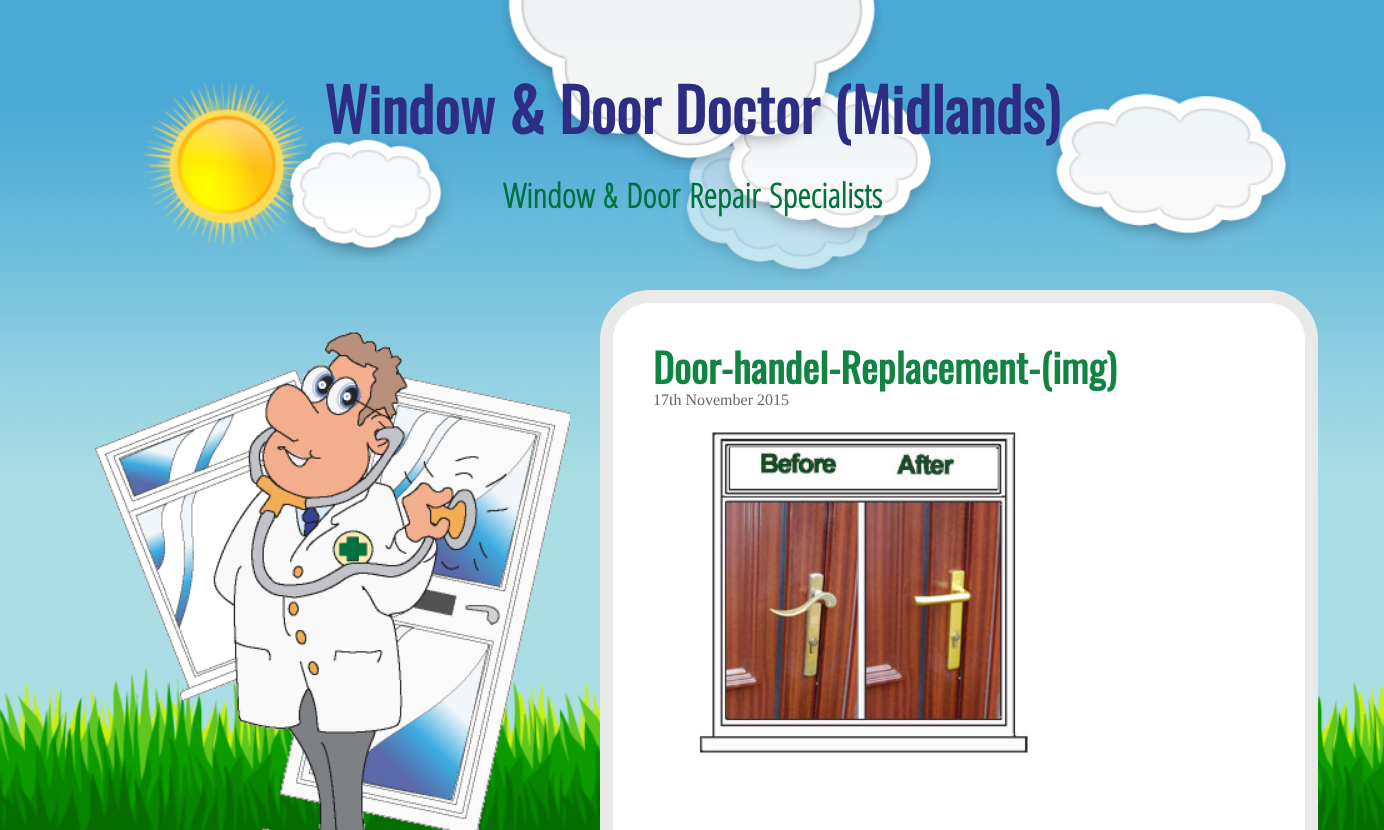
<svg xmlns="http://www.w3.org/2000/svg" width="1384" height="830">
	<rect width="100%" height="100%" fill="#FFFFFF" />
	<image x="0" y="0" width="1384" height="766" href="assets/img1.png" />
	<image x="142" y="82" width="167" height="164" href="assets/img2.png" />
	<image x="683" y="142" width="209" height="138" href="assets/img5.png" />
	<image x="283" y="91" width="1008" height="171" href="assets/img4.png" />
	<image x="503" y="0" width="378" height="170" href="assets/img3.png" />
	<text x="324" y="134" font-family="Oswald" font-size="60" font-weight="700" fill="#2D2E83">Window &amp; Door Doctor (Midlands)</text>
	<g font-family="Open Sans Condensed" font-size="34" font-weight="700" fill="#00723F">
		<text x="503" y="208">Window</text>
		<text x="603" y="208">&amp;</text>
		<text x="626" y="208">Door</text>
		<text x="689" y="208">Repair</text>
		<text x="769" y="208">Specialists</text>
	</g>
	<image x="0" y="667" width="1384" height="163" href="assets/img8.png" />
	<image x="94" y="332" width="476" height="498" href="assets/img6.png" />
	<rect x="606.5" y="296.5" width="705" height="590" rx="43.5" fill="#FFFFFF" stroke="#E9E9E9" stroke-width="13" />
	<text x="653" y="384" font-family="Oswald" font-size="40" font-weight="700" fill="#118441">Door-handel-Replacement-(img)</text>
	<text x="653" y="405" font-family="Liberation Serif" font-size="16" fill="#666666">17th November 2015</text>
	<image x="699" y="432" width="330" height="321" href="assets/img7.png" />
</svg>
